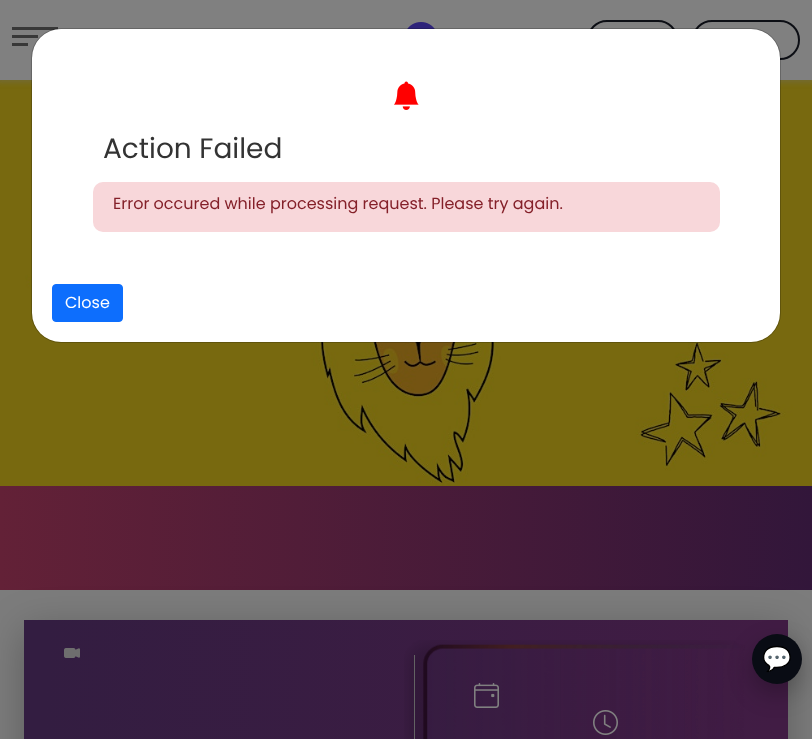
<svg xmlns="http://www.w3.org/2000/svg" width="812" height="739">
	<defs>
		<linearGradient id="g1" gradientUnits="userSpaceOnUse" x1="0" y1="335" x2="812" y2="335"><stop offset="0" stop-color="#632137" /><stop offset="1" stop-color="#32163A" /></linearGradient>
		<linearGradient id="g2" gradientUnits="userSpaceOnUse" x1="22" y1="712" x2="790" y2="728"><stop offset="0.03" stop-color="#331D41" /><stop offset="0.98" stop-color="#411C44" /></linearGradient>
	</defs>
	<rect width="100%" height="100%" fill="#7C7C7C" />
	<rect x="0" y="486" width="812" height="104" fill="url(#g1)" />
	<image x="0" y="80" width="812" height="406" href="assets/img1.png" />
	<rect x="24" y="630" width="764" height="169" fill="#000000" fill-opacity="0.25" filter="blur(20px)" />
	<rect x="24" y="620" width="764" height="119" fill="url(#g2)" />
	<image x="64" y="648" width="16" height="10" href="assets/img2.png" />
	<image x="404" y="640" width="341" height="99" href="assets/img3.png" />
	<image x="474" y="683" width="25" height="25" href="assets/img4.png" />
	<image x="593" y="710" width="25" height="25" href="assets/img5.png" />
	<rect x="414" y="655" width="1" height="84" fill="#636363" />
	<rect x="-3" y="-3" width="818" height="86" fill="#6B6B6B" fill-opacity="0.34" filter="blur(2.5px)" />
	<rect x="0" y="0" width="812" height="80" fill="#808080" />
	<rect x="588" y="21" width="89" height="38" rx="19" fill="none" stroke="#0C0E14" stroke-width="2" />
	<rect x="693" y="21" width="106" height="38" rx="19" fill="none" stroke="#0C0E14" stroke-width="2" />
	<rect x="12" y="27" width="46" height="3" fill="#383838" />
	<rect x="12" y="35" width="26" height="3" fill="#383838" />
	<rect x="32" y="29" width="748" height="313" rx="29" fill="#FFFFFF" />
	<image x="407" y="22" width="28" height="7" href="assets/img7.png" />
	<rect x="31.5" y="28.5" width="749" height="314" rx="29.5" fill="none" stroke="#000000" stroke-opacity="0.2" />
	<image x="394" y="81" width="25" height="29" href="assets/img6.png" />
	<text x="103" y="158" font-family="Poppins" font-size="28" fill="#333333">Action Failed</text>
	<rect x="93" y="182" width="627" height="50" rx="10" fill="#F8D7DA" />
	<text x="113" y="209" font-family="Poppins" font-size="16" fill="#842029">Error occured while processing request. Please try again.</text>
	<rect x="52.5" y="284.5" width="70" height="37" rx="3.5" fill="#0D6EFD" stroke="#0D6EFD" />
	<text x="65" y="308" font-family="Poppins" font-size="16" fill="#FFFFFF">Close</text>
	<rect x="12" y="43" width="16" height="3" fill="#383838" />
	<rect x="752" y="644" width="50" height="50" rx="25" fill="#000000" fill-opacity="0.25" filter="blur(12.5px)" />
	<circle cx="777" cy="659" r="25" fill="#090C14" />
	<text x="762" y="667" font-family="Noto Color Emoji" font-size="24" fill="#808080">💬</text>
</svg>
